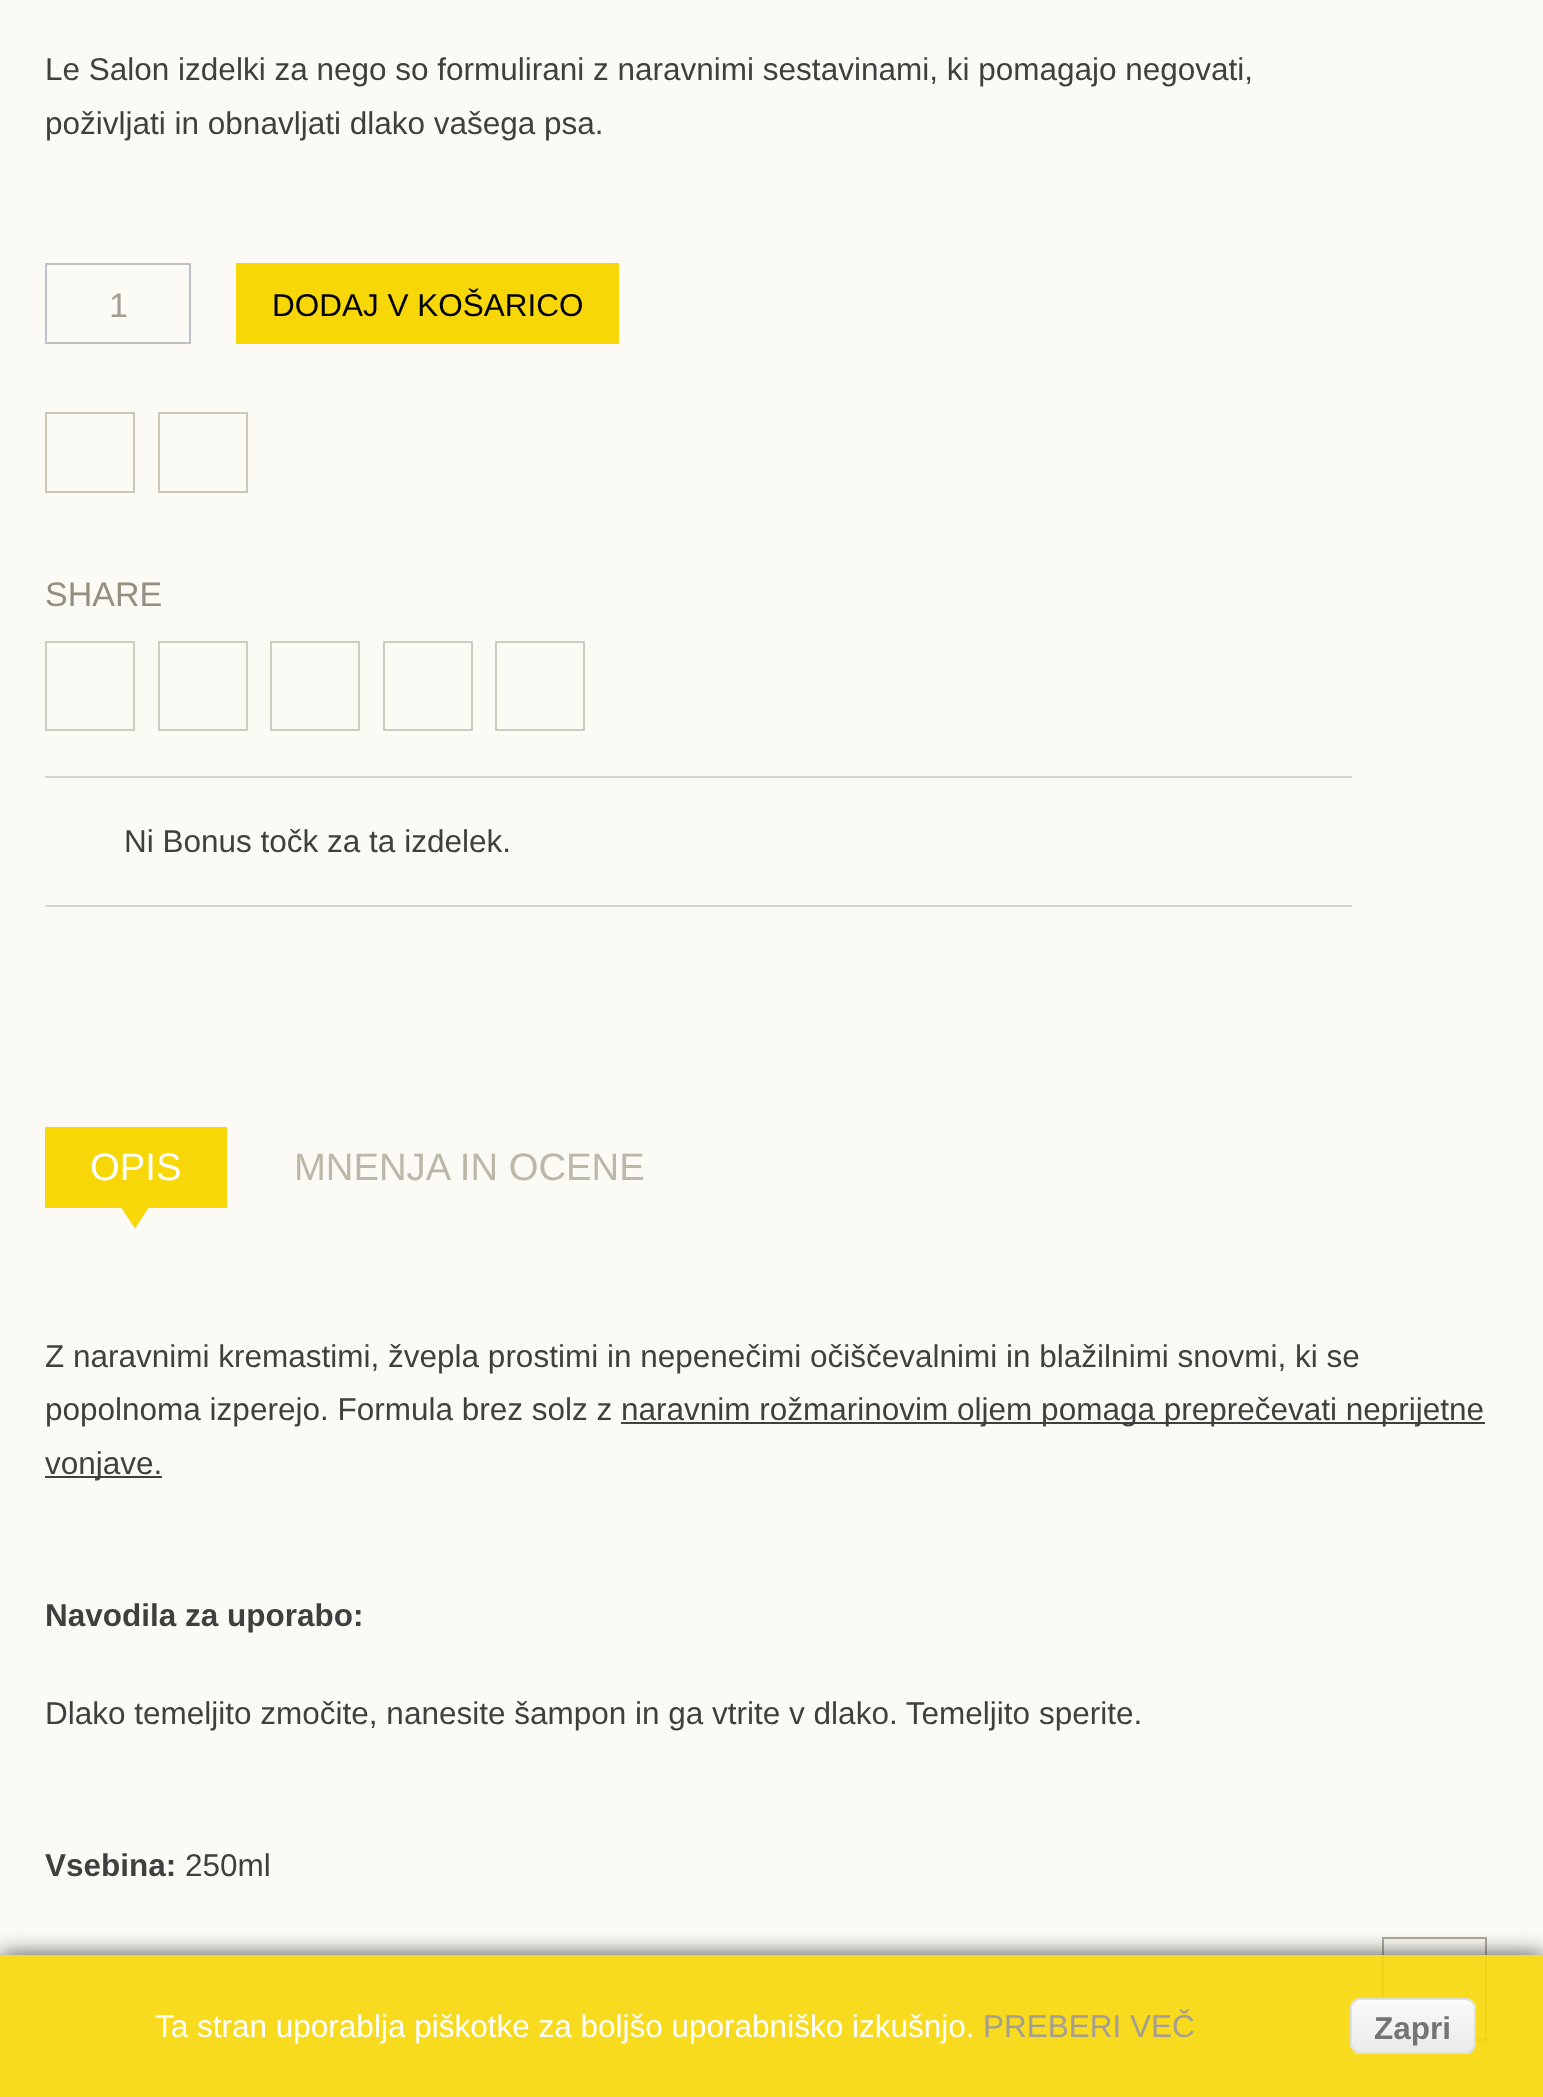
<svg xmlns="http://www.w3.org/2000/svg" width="1543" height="2097">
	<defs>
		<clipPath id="clip1"><path d="M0 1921H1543V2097H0ZM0 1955H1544V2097H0Z" clip-rule="evenodd" /></clipPath>
		<clipPath id="clip2"><rect x="1350" y="1998" width="126" height="56" rx="11" /></clipPath>
		<linearGradient id="g1" gradientUnits="userSpaceOnUse" x1="1352" y1="1949" x2="1352" y2="2000"><stop offset="0.05" stop-color="#F9F9F9" stop-opacity="0.9" /><stop offset="1" stop-color="#E9E9E9" stop-opacity="0.9" /></linearGradient>
		<linearGradient id="g2" gradientUnits="userSpaceOnUse" x1="1352" y1="2000" x2="1352" y2="2052"><stop offset="0.05" stop-color="#F9F9F9" stop-opacity="0.9" /><stop offset="1" stop-color="#E9E9E9" stop-opacity="0.9" /></linearGradient>
		<linearGradient id="g3" gradientUnits="userSpaceOnUse" x1="1352" y1="2052" x2="1352" y2="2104"><stop offset="0.05" stop-color="#F9F9F9" /><stop offset="1" stop-color="#EBEBEA" /></linearGradient>
	</defs>
	<rect width="100%" height="100%" fill="#FBFAF4" />
	<g font-family="Liberation Sans" font-size="31.5" fill="#3F3F3F">
		<text x="45" y="80">Le Salon izdelki za nego so formulirani z naravnimi sestavinami, ki pomagajo negovati,</text>
		<text x="45" y="134">poživljati in obnavljati dlako vašega psa.</text>
	</g>
	<rect x="46" y="264" width="144" height="79" fill="none" stroke="#BDC2C9" stroke-width="2" />
	<text x="109" y="317" font-family="Liberation Sans" font-size="34" fill="#A39D94">1</text>
	<rect x="236" y="263" width="383" height="81" fill="#F7D708" />
	<text x="272" y="316" font-family="Liberation Sans" font-size="31.5" fill="#000000">DODAJ V KOŠARICO</text>
	<rect x="46" y="413" width="88" height="79" fill="none" stroke="#CBC6B5" stroke-width="2" />
	<rect x="159" y="413" width="88" height="79" fill="none" stroke="#CBC6B5" stroke-width="2" />
	<text x="45" y="606" font-family="Liberation Sans" font-size="34" fill="#958F82">SHARE</text>
	<rect x="46" y="642" width="88" height="88" fill="none" stroke="#CDCCBF" stroke-width="2" />
	<rect x="159" y="642" width="88" height="88" fill="none" stroke="#CDCCBF" stroke-width="2" />
	<rect x="271" y="642" width="88" height="88" fill="none" stroke="#CDCCBF" stroke-width="2" />
	<rect x="384" y="642" width="88" height="88" fill="none" stroke="#CDCCBF" stroke-width="2" />
	<rect x="496" y="642" width="88" height="88" fill="none" stroke="#CDCCBF" stroke-width="2" />
	<rect x="45" y="776" width="1307" height="2" fill="#D6D4D4" />
	<rect x="45" y="905" width="1307" height="2" fill="#D6D4D4" />
	<text x="124" y="852" font-family="Liberation Sans" font-size="31.5" fill="#3F3F3F">Ni Bonus točk za ta izdelek.</text>
	<rect x="45" y="1127" width="182" height="81" fill="#F7D708" />
	<text x="90" y="1180" font-family="Liberation Sans" font-size="38.25" fill="#FFFFFF">OPIS</text>
	<path d="M121.5 1208H148.5L135 1228.5Z" fill="#F7D708" />
	<text x="294" y="1180" font-family="Liberation Sans" font-size="38.25" fill="#BDB7AA">MNENJA IN OCENE</text>
	<g font-family="Liberation Sans" font-size="31.5" fill="#3F3F3F">
		<text x="45" y="1367">Z naravnimi kremastimi, žvepla prostimi in nepenečimi očiščevalnimi in blažilnimi snovmi, ki se</text>
		<text x="45" y="1420">popolnoma izperejo. Formula brez solz z</text>
	</g>
	<rect x="621" y="1422" width="864" height="2" fill="#3F3F3F" />
	<text x="621" y="1420" font-family="Liberation Sans" font-size="31.5" fill="#3F3F3F">naravnim rožmarinovim oljem pomaga preprečevati neprijetne</text>
	<rect x="45" y="1476" width="117" height="2" fill="#3F3F3F" />
	<text x="45" y="1474" font-family="Liberation Sans" font-size="31.5" fill="#3F3F3F">vonjave.</text>
	<text x="45" y="1626" font-family="Liberation Sans" font-size="31.5" font-weight="700" fill="#3F3F3F">Navodila za uporabo:</text>
	<text x="45" y="1724" font-family="Liberation Sans" font-size="31.5" fill="#3F3F3F">Dlako temeljito zmočite, nanesite šampon in ga vtrite v dlako. Temeljito sperite.</text>
	<text x="45" y="1876" font-family="Liberation Sans" font-size="31.5" font-weight="700" fill="#3F3F3F">Vsebina:</text>
	<text x="185" y="1876" font-family="Liberation Sans" font-size="31.5" fill="#3F3F3F">250ml</text>
	<rect x="1383" y="1938" width="103" height="102" fill="none" stroke="#AEA995" stroke-width="2" />
	<g clip-path="url(#clip1)">
		<rect x="0" y="1955" width="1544" height="142" fill="#363636" fill-opacity="0.9" filter="blur(11px)" />
	</g>
	<rect x="0" y="1955" width="1543" height="142" fill="#F7D708" fill-opacity="0.9" />
	<text x="155" y="2037" font-family="Liberation Sans" font-size="31.5" fill="#FFFFFF">Ta stran uporablja piškotke za boljšo uporabniško izkušnjo.</text>
	<text x="983" y="2037" font-family="Liberation Sans" font-size="31.5" fill="#A39D94">PREBERI VEČ</text>
	<rect x="1350" y="1998" width="126" height="56" rx="11" fill="#F9F9F9" fill-opacity="0.9" />
	<g clip-path="url(#clip2)">
		<rect x="1350" y="1998" width="126" height="2" fill="url(#g1)" />
		<rect x="1350" y="2000" width="126" height="52" fill="url(#g2)" />
		<rect x="1350" y="2052" width="126" height="2" fill="url(#g3)" />
	</g>
	<path d="M1361 2002H1465C1470 2002 1474 2007 1474 2012C1474 1996 1461 2000 1448 2000H1378C1365 2000 1352 1996 1352 2012C1352 2007 1356 2002 1361 2002Z" fill="#FEFEFE" />
	<rect x="1351" y="1999" width="124" height="54" rx="10" fill="none" stroke="#DCDCDC" stroke-opacity="0.9" stroke-width="2" />
	<text x="1374" y="2039" font-family="Liberation Sans" font-size="31.5" font-weight="700" fill="#747474">Zapri</text>
</svg>
